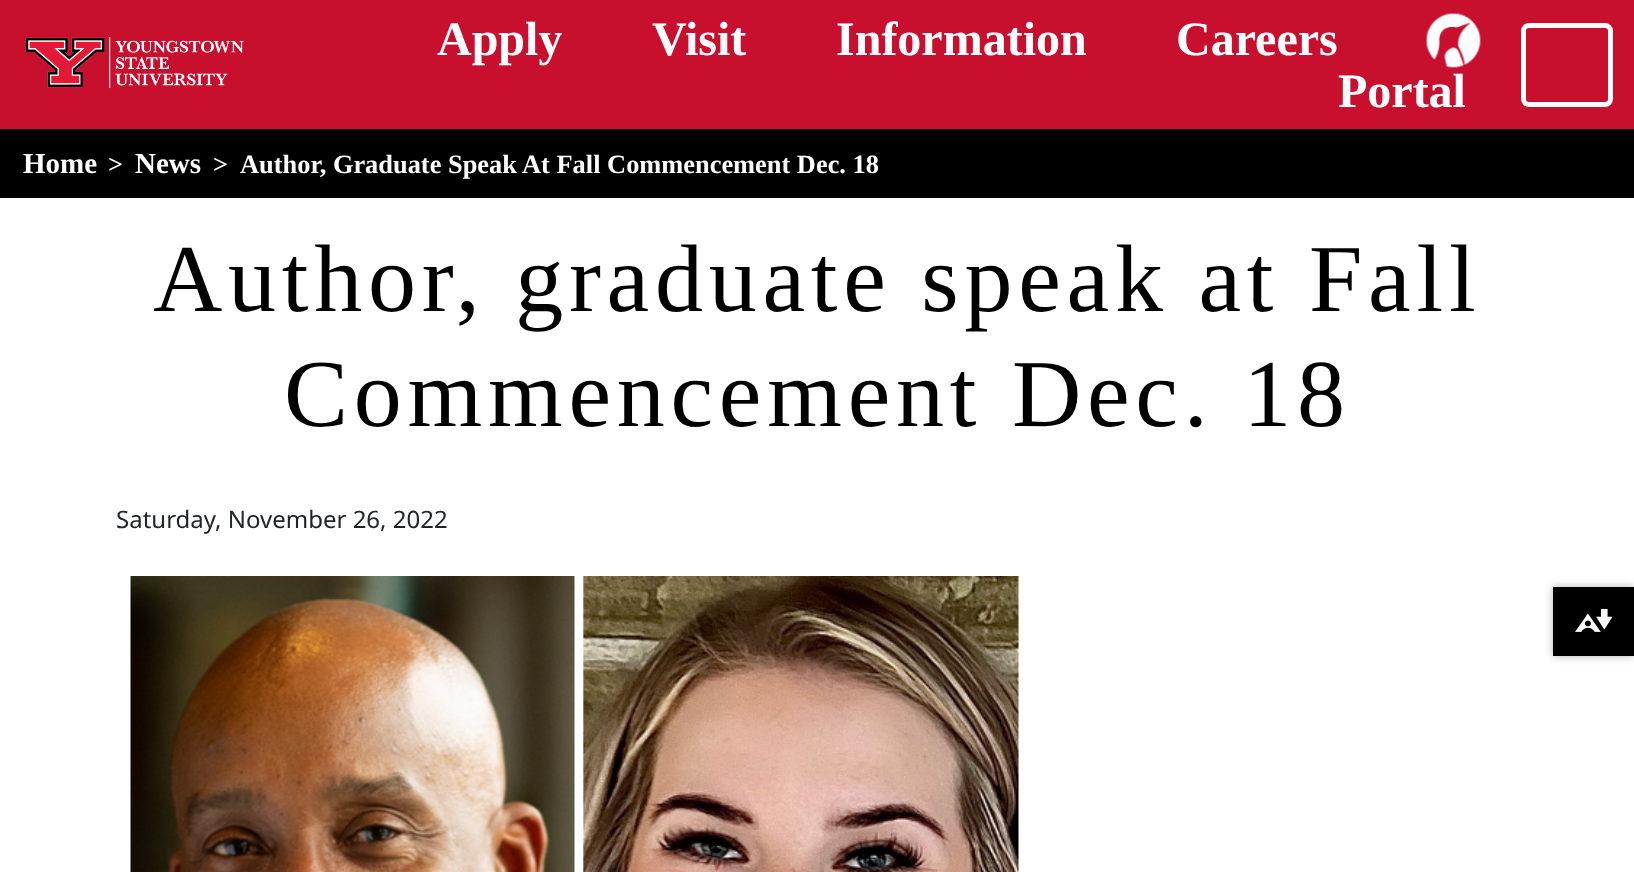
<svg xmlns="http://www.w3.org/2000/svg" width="1634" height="872">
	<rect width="100%" height="100%" fill="#FFFFFF" />
	<rect x="0" y="0" width="1634" height="129" fill="#C8102E" />
	<image x="25" y="37" width="219" height="52" href="assets/img1.png" />
	<g font-family="Liberation Serif" font-size="48" font-weight="700" fill="#FFFFFF">
		<text x="437" y="55">Apply</text>
		<text x="652" y="55">Visit</text>
		<text x="836" y="55">Information</text>
		<text x="1176" y="55">Careers</text>
	</g>
	<image x="1426" y="13" width="55" height="55" href="assets/img2.png" />
	<text x="1338" y="107" font-family="Liberation Serif" font-size="48" font-weight="700" fill="#FFFFFF">Portal</text>
	<rect x="1523.5" y="25.5" width="87" height="79" rx="5.5" fill="none" stroke="#FFFFFF" stroke-width="5" />
	<rect x="0" y="129" width="1634" height="69" fill="#000000" />
	<text x="23" y="173" font-family="Liberation Serif" font-size="29" font-weight="700" fill="#FFFFFF">Home</text>
	<text x="108" y="173" font-family="Liberation Serif" font-size="26.4" font-weight="700" fill="#FFFFFF">&gt;</text>
	<text x="135" y="173" font-family="Liberation Serif" font-size="29" font-weight="700" fill="#FFFFFF">News</text>
	<g font-family="Liberation Serif" font-size="26.4" font-weight="700" fill="#FFFFFF">
		<text x="213" y="173">&gt;</text>
		<text x="240" y="173">Author, Graduate Speak At Fall Commencement Dec. 18</text>
	</g>
	<g font-family="Liberation Serif" font-size="96" letter-spacing="5.75" fill="#000000">
		<text x="153" y="311">Author, graduate speak at Fall</text>
		<text x="284" y="426">Commencement Dec. 18</text>
	</g>
	<text x="116" y="528" font-family="Noto Sans" font-size="24" fill="#212529">Saturday, November 26, 2022</text>
	<image x="130" y="576" width="889" height="296" href="assets/img3.png" />
	<rect x="1553" y="587" width="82" height="69" fill="#000000" fill-opacity="0.3" filter="blur(4px)" />
	<rect x="1553" y="587" width="81" height="69" fill="#000000" />
	<image x="1575" y="609" width="38" height="23" href="assets/img4.png" />
</svg>
